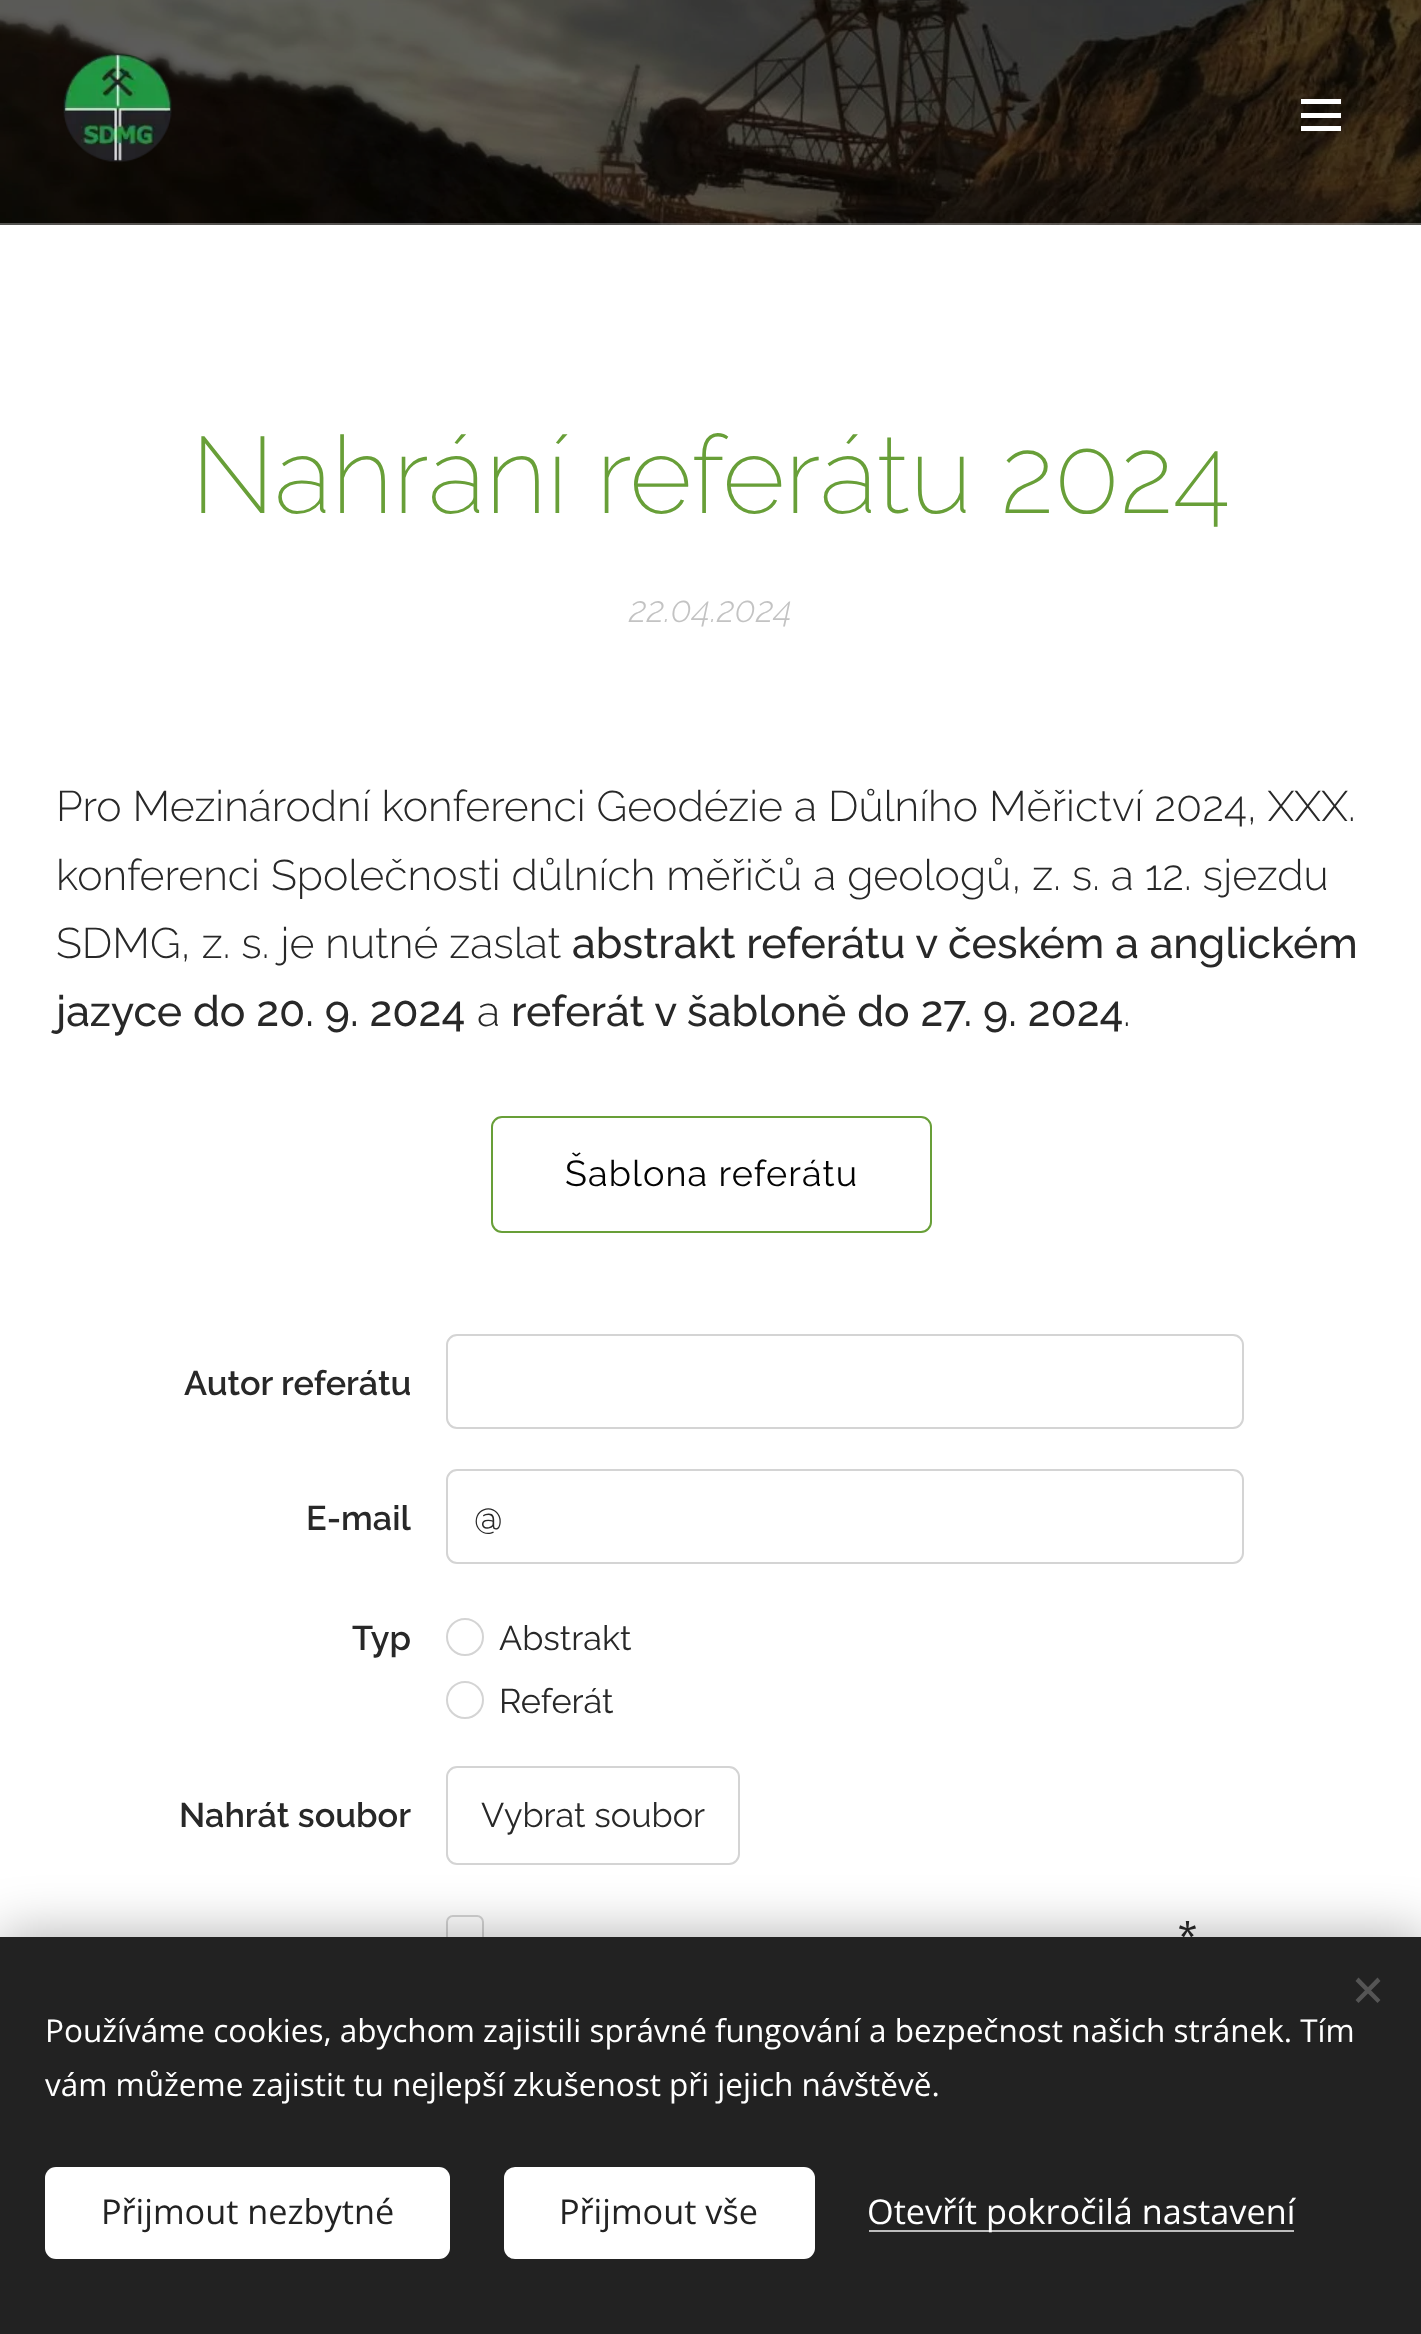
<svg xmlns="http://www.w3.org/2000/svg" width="1421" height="2334">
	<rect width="100%" height="100%" fill="#FFFFFF" />
	<image x="0" y="0" width="1421" height="225" href="assets/img1.png" />
	<image x="63" y="53" width="109" height="110" href="assets/img2.png" />
	<rect x="1301" y="113" width="40" height="5" fill="#FFFFFF" />
	<rect x="1301" y="99" width="40" height="5" fill="#FFFFFF" />
	<rect x="1301" y="126" width="40" height="5" fill="#FFFFFF" />
	<rect x="0" y="223" width="1421" height="2" fill="#FFFFFF" fill-opacity="0.3" />
	<text x="191" y="513" font-family="Raleway" font-size="108" font-weight="200" fill="#689F38">Nahrání referátu 2024</text>
	<text x="629" y="622" font-family="Raleway" font-size="36" font-weight="300" font-style="italic" fill="#C3C3C3">22.04.2024</text>
	<g font-family="Raleway" font-size="42.75" font-weight="300" fill="#282828">
		<text x="56" y="821">Pro Mezinárodní konferenci Geodézie a Důlního Měřictví 2024, XXX.</text>
		<text x="56" y="890">konferenci Společnosti důlních měřičů a geologů, z. s. a 12. sjezdu</text>
		<text x="56" y="958">SDMG, z. s. je nutné zaslat</text>
	</g>
	<g font-family="Raleway" font-size="42.75" font-weight="500" fill="#282828">
		<text x="572" y="958">abstrakt referátu v českém a anglickém</text>
		<text x="56" y="1026">jazyce do 20. 9. 2024</text>
	</g>
	<text x="477" y="1026" font-family="Raleway" font-size="42.75" font-weight="300" fill="#282828">a</text>
	<text x="511" y="1026" font-family="Raleway" font-size="42.75" font-weight="500" fill="#282828">referát v šabloně do 27. 9. 2024</text>
	<text x="1123" y="1026" font-family="Raleway" font-size="42.75" font-weight="300" fill="#282828">.</text>
	<rect x="492" y="1117" width="439" height="115" rx="10" fill="none" stroke="#689F38" stroke-width="2" />
	<text x="565" y="1186" font-family="Raleway" font-size="36" letter-spacing="1.1" fill="#030303">Šablona referátu</text>
	<text x="184" y="1395" font-family="Raleway" font-size="34.25" font-weight="600" fill="#282828">Autor referátu</text>
	<rect x="447" y="1335" width="796" height="93" rx="10" fill="none" stroke="#D4D4D4" stroke-width="2" />
	<text x="306" y="1530" font-family="Raleway" font-size="34.25" font-weight="600" fill="#282828">E-mail</text>
	<rect x="447" y="1470" width="796" height="93" rx="10" fill="none" stroke="#D4D4D4" stroke-width="2" />
	<text x="474" y="1529" font-family="Raleway" font-size="34.25" fill="#282828">@</text>
	<text x="352" y="1650" font-family="Raleway" font-size="34.25" font-weight="600" fill="#282828">Typ</text>
	<circle cx="465" cy="1637" r="18" fill="none" stroke="#D4D4D4" stroke-width="2" />
	<text x="499" y="1650" font-family="Raleway" font-size="34.25" fill="#282828">Abstrakt</text>
	<circle cx="465" cy="1700" r="18" fill="none" stroke="#D4D4D4" stroke-width="2" />
	<text x="499" y="1713" font-family="Raleway" font-size="34.25" fill="#282828">Referát</text>
	<text x="179" y="1827" font-family="Raleway" font-size="34.25" font-weight="600" fill="#282828">Nahrát soubor</text>
	<rect x="447" y="1767" width="292" height="97" rx="10" fill="none" stroke="#D4D4D4" stroke-width="2" />
	<text x="481" y="1827" font-family="Raleway" font-size="34.25" fill="#282828">Vybrat soubor</text>
	<rect x="447" y="1916" width="36" height="36" rx="6" fill="none" stroke="#D4D4D4" stroke-width="2" />
	<text x="1178" y="1947" font-family="Roboto Flex" font-size="36" fill="#282828">*</text>
	<rect x="0" y="1937" width="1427" height="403" fill="#000000" fill-opacity="0.33" filter="blur(28px)" />
	<rect x="0" y="1937" width="1421" height="397" fill="#222222" />
	<path d="M1355.5 2000L1377.5 1977.5L1380.5 1981L1358.5 2003Z" fill="#555555" />
	<path d="M1358.5 1977.5L1380.5 2000L1377.5 2003L1355.5 1981Z" fill="#555555" />
	<g font-family="Open Sans" font-size="31.5" fill="#FFFFFF">
		<text x="45" y="2042">Používáme cookies, abychom zajistili správné fungování a bezpečnost našich stránek. Tím</text>
		<text x="45" y="2096">vám můžeme zajistit tu nejlepší zkušenost při jejich návštěvě.</text>
	</g>
	<rect x="45" y="2167" width="405" height="92" rx="11" fill="#FFFFFF" />
	<text x="101" y="2224" font-family="Open Sans" font-size="34.25" fill="#222222">Přijmout nezbytné</text>
	<rect x="504" y="2167" width="311" height="92" rx="11" fill="#FFFFFF" />
	<text x="559" y="2224" font-family="Open Sans" font-size="34.25" fill="#222222">Přijmout vše</text>
	<rect x="869" y="2230" width="425" height="2" fill="#BDBDBD" />
	<text x="867" y="2224" font-family="Open Sans" font-size="34.25" fill="#FFFFFF">Otevřít pokročilá nastavení</text>
</svg>
